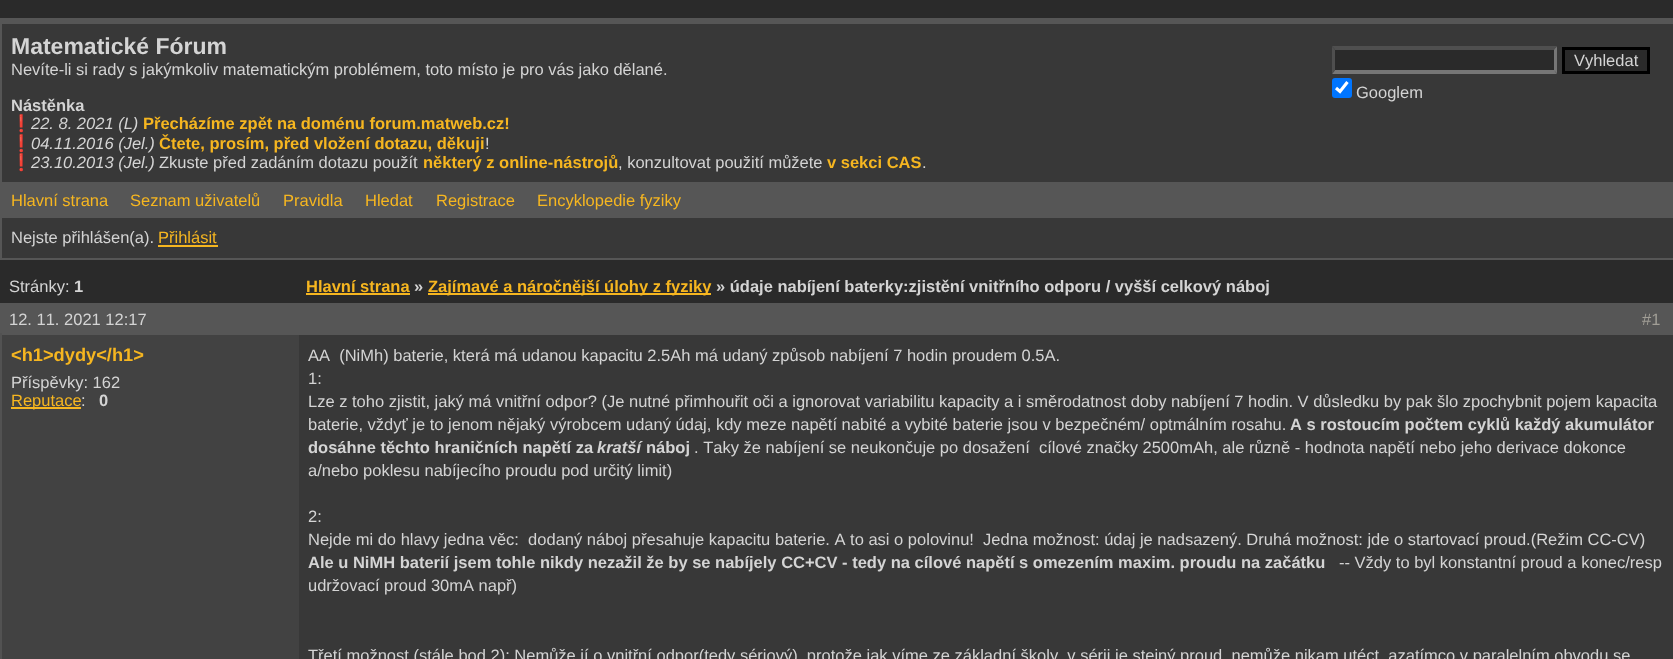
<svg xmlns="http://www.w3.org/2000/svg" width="1673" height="659">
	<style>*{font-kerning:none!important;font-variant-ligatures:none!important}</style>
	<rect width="100%" height="100%" fill="#2A2A2A" />
	<rect x="2" y="24" width="1671" height="234" fill="#383838" />
	<rect x="0" y="18" width="1673" height="6" fill="#565656" />
	<rect x="0" y="258" width="1673" height="2" fill="#565656" />
	<rect x="0" y="18" width="2" height="242" fill="#565656" />
	<text x="11" y="54" font-family="Liberation Sans" font-size="23" font-weight="700" fill="#D4D4D4">Matematické Fórum</text>
	<text x="11" y="75" font-family="Liberation Sans" font-size="16.5" fill="#D4D4D4">Nevíte-li si rady s jakýmkoliv matematickým problémem, toto místo je pro vás jako dělané.</text>
	<text x="11" y="111" font-family="Liberation Sans" font-size="16.5" font-weight="700" fill="#D4D4D4">Nástěnka</text>
	<text x="11" y="129" font-family="Noto Color Emoji" font-size="16.5" fill="#D4D4D4">❗</text>
	<text x="31" y="129" font-family="Liberation Sans" font-size="16.5" font-style="italic" fill="#D4D4D4">22. 8. 2021 (L)</text>
	<text x="143" y="129" font-family="Liberation Sans" font-size="16.5" font-weight="700" fill="#F6B620">Přecházíme zpět na doménu forum.matweb.cz!</text>
	<text x="11" y="149" font-family="Noto Color Emoji" font-size="16.5" fill="#D4D4D4">❗</text>
	<text x="31" y="149" font-family="Liberation Sans" font-size="16.5" font-style="italic" fill="#D4D4D4">04.11.2016 (Jel.)</text>
	<text x="159" y="149" font-family="Liberation Sans" font-size="16.5" font-weight="700" fill="#F6B620">Čtete, prosím, před vložení dotazu, děkuji</text>
	<text x="485" y="149" font-family="Liberation Sans" font-size="16.5" fill="#D4D4D4">!</text>
	<text x="11" y="168" font-family="Noto Color Emoji" font-size="16.5" fill="#D4D4D4">❗</text>
	<text x="31" y="168" font-family="Liberation Sans" font-size="16.5" font-style="italic" fill="#D4D4D4">23.10.2013 (Jel.)</text>
	<text x="159" y="168" font-family="Liberation Sans" font-size="16.5" fill="#D4D4D4">Zkuste před zadáním dotazu použít</text>
	<text x="423" y="168" font-family="Liberation Sans" font-size="16.5" font-weight="700" fill="#F6B620">některý z online-nástrojů</text>
	<text x="618" y="168" font-family="Liberation Sans" font-size="16.5" fill="#D4D4D4">, konzultovat použití můžete</text>
	<text x="827" y="168" font-family="Liberation Sans" font-size="16.5" font-weight="700" fill="#F6B620">v sekci CAS</text>
	<text x="922" y="168" font-family="Liberation Sans" font-size="16.5" fill="#D4D4D4">.</text>
	<rect x="1332" y="47" width="225" height="27" fill="#2A2A2A" />
	<path d="M1332 46H1557L1554 50H1335Z" fill="#4F4F4F" />
	<path d="M1557 46.5V73.5L1554 70.5V49.5Z" fill="#767676" />
	<path d="M1557 74H1332L1335 70H1554Z" fill="#767676" />
	<path d="M1332 73.5V46.5L1335 49.5V70.5Z" fill="#4F4F4F" />
	<rect x="1563.5" y="48.5" width="85" height="24" fill="#2A2A2A" stroke="#000000" stroke-width="3" />
	<text x="1574" y="66" font-family="Liberation Sans" font-size="16.5" fill="#D4D4D4">Vyhledat</text>
	<rect x="1332" y="78" width="20" height="20" rx="3" fill="#0075FF" />
	<path d="M1336 88L1340 91.5L1347.5 82" fill="none" stroke="#FFFFFF" stroke-width="3.1" />
	<text x="1356" y="98" font-family="Liberation Sans" font-size="16.5" fill="#D4D4D4">Googlem</text>
	<rect x="2" y="182" width="1671" height="36" fill="#565656" />
	<g font-family="Liberation Sans" font-size="16.5" fill="#F6B620">
		<text x="11" y="206">Hlavní strana</text>
		<text x="130" y="206">Seznam uživatelů</text>
		<text x="283" y="206">Pravidla</text>
		<text x="365" y="206">Hledat</text>
		<text x="436" y="206">Registrace</text>
		<text x="537" y="206">Encyklopedie fyziky</text>
	</g>
	<text x="11" y="243" font-family="Liberation Sans" font-size="16.5" fill="#D4D4D4">Nejste přihlášen(a).</text>
	<text x="158" y="243" font-family="Liberation Sans" font-size="16.5" fill="#F6B620">Přihlásit</text>
	<rect x="158" y="245" width="60" height="2" fill="#F6B620" />
	<text x="9" y="292" font-family="Liberation Sans" font-size="16.5" fill="#D4D4D4">Stránky:</text>
	<text x="74" y="292" font-family="Liberation Sans" font-size="16.5" font-weight="700" fill="#D4D4D4">1</text>
	<text x="306" y="292" font-family="Liberation Sans" font-size="16.5" font-weight="700" fill="#F6B620">Hlavní strana</text>
	<rect x="306" y="293" width="104" height="2" fill="#F6B620" />
	<text x="414" y="292" font-family="Liberation Sans" font-size="16.5" font-weight="700" fill="#D4D4D4">»</text>
	<rect x="428" y="293" width="283" height="2" fill="#F6B620" />
	<text x="428" y="292" font-family="Liberation Sans" font-size="16.5" font-weight="700" fill="#F6B620">Zajímavé a náročnější úlohy z fyziky</text>
	<text x="716" y="292" font-family="Liberation Sans" font-size="16.5" font-weight="700" fill="#D4D4D4">» údaje nabíjení baterky:zjistění vnitřního odporu / vyšší celkový náboj</text>
	<rect x="299" y="335" width="1374" height="324" fill="#383838" />
	<rect x="0" y="303" width="1673" height="32" fill="#565656" />
	<text x="9" y="325" font-family="Liberation Sans" font-size="16.5" fill="#D4D4D4">12. 11. 2021 12:17</text>
	<text x="1642" y="325" font-family="Liberation Sans" font-size="16.5" fill="#A19E96">#1</text>
	<rect x="0" y="333" width="2" height="326" fill="#525252" />
	<rect x="2" y="335" width="297" height="324" fill="#424242" />
	<text x="11" y="361" font-family="Liberation Sans" font-size="18.25" font-weight="700" fill="#F6B620">&lt;h1&gt;dydy&lt;/h1&gt;</text>
	<text x="11" y="388" font-family="Liberation Sans" font-size="16.5" fill="#D4D4D4">Příspěvky: 162</text>
	<rect x="11" y="407" width="70" height="2" fill="#F6B620" />
	<text x="11" y="406" font-family="Liberation Sans" font-size="16.5" fill="#F6B620">Reputace</text>
	<text x="81" y="406" font-family="Liberation Sans" font-size="16.5" fill="#D4D4D4">:</text>
	<text x="99" y="406" font-family="Liberation Sans" font-size="16.5" font-weight="700" fill="#D4D4D4">0</text>
	<g font-family="Liberation Sans" font-size="16.5" fill="#D4D4D4">
		<text x="308" y="361" xml:space="preserve">AA  (NiMh) baterie, která má udanou kapacitu 2.5Ah má udaný způsob nabíjení 7 hodin proudem 0.5A.</text>
		<text x="308" y="384">1:</text>
		<text x="308" y="407">Lze z toho zjistit, jaký má vnitřní odpor? (Je nutné přimhouřit oči a ignorovat variabilitu kapacity a i směrodatnost doby nabíjení 7 hodin. V důsledku by pak šlo zpochybnit pojem kapacita</text>
		<text x="308" y="430">baterie, vždyť je to jenom nějaký výrobcem udaný údaj, kdy meze napětí nabité a vybité baterie jsou v bezpečném/ optmálním rosahu.</text>
	</g>
	<g font-family="Liberation Sans" font-size="16.5" font-weight="700" fill="#D4D4D4">
		<text x="1290" y="430">A s rostoucím počtem cyklů každý akumulátor</text>
		<text x="308" y="453">dosáhne těchto hraničních napětí za</text>
	</g>
	<text x="597" y="453" font-family="Liberation Sans" font-size="16.5" font-weight="700" font-style="italic" fill="#D4D4D4">kratší</text>
	<text x="646" y="453" font-family="Liberation Sans" font-size="16.5" font-weight="700" fill="#D4D4D4">náboj</text>
	<g font-family="Liberation Sans" font-size="16.5" fill="#D4D4D4">
		<text x="694" y="453" xml:space="preserve">. Taky že nabíjení se neukončuje po dosažení  cílové značky 2500mAh, ale různě - hodnota napětí nebo jeho derivace dokonce</text>
		<text x="308" y="476">a/nebo poklesu nabíjecího proudu pod určitý limit)</text>
		<text x="308" y="522">2:</text>
		<text x="308" y="545" xml:space="preserve">Nejde mi do hlavy jedna věc:  dodaný náboj přesahuje kapacitu baterie. A to asi o polovinu!  Jedna možnost: údaj je nadsazený. Druhá možnost: jde o startovací proud.(Režim CC-CV)</text>
	</g>
	<text x="308" y="568" font-family="Liberation Sans" font-size="16.5" font-weight="700" fill="#D4D4D4">Ale u NiMH baterií jsem tohle nikdy nezažil že by se nabíjely CC+CV - tedy na cílové napětí s omezením maxim. proudu na začátku</text>
	<g font-family="Liberation Sans" font-size="16.5" fill="#D4D4D4">
		<text x="1339" y="568">-- Vždy to byl konstantní proud a konec/resp</text>
		<text x="308" y="591">udržovací proud 30mA např)</text>
		<text x="308" y="661">Třetí možnost (stále bod 2): Nemůže jí o vnitřní odpor(tedy sériový), protože jak víme ze základní školy, v sérii je stejný proud, nemůže nikam utéct, azatímco v paralelním obvodu se</text>
	</g>
</svg>
